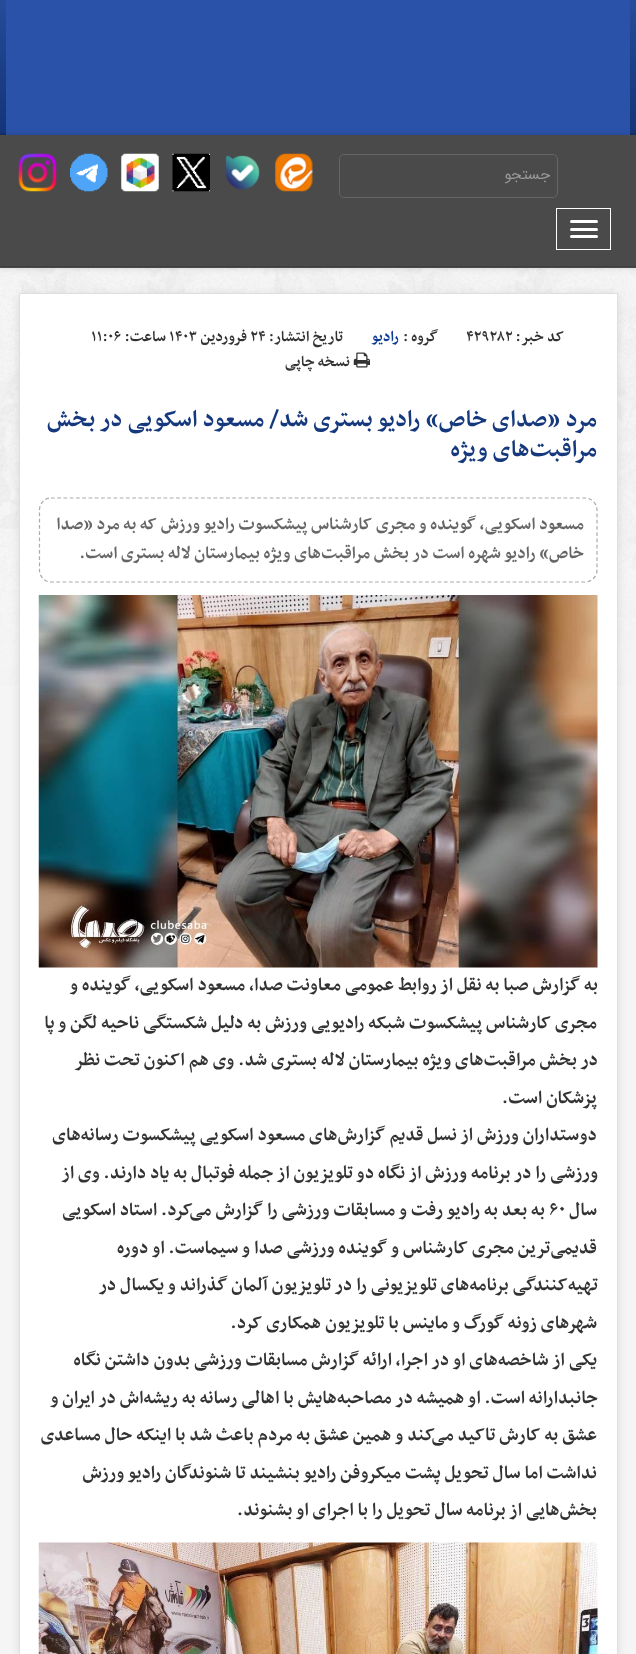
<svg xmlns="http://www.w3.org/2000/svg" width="636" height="1654">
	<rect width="100%" height="100%" fill="#F5F5F5" />
	<image x="0" y="268" width="636" height="418" href="assets/img1.png" />
	<image x="0" y="0" width="636" height="135" href="assets/img2.png" />
	<rect x="6" y="0" width="624" height="135" fill="#2A52A9" />
	<rect x="0" y="135" width="636" height="133" fill="#000000" fill-opacity="0.15" filter="blur(3px)" />
	<rect x="0" y="135" width="636" height="133" fill="#4A4A4A" />
	<rect x="0" y="266" width="636" height="1" fill="#3F3F3F" />
	<rect x="339.5" y="154.5" width="218" height="43" rx="4.5" fill="none" stroke="#666666" />
	<text x="550" y="179" font-family="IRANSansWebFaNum" font-size="15" direction="rtl" fill="#999999">جستجو</text>
	<image x="275" y="153" width="38" height="39" href="assets/img3.png" />
	<image x="225" y="155" width="35" height="35" href="assets/img4.png" />
	<image x="172" y="153" width="38" height="39" href="assets/img5.png" />
	<image x="121" y="153" width="38" height="39" href="assets/img6.png" />
	<image x="70" y="153" width="38" height="39" href="assets/img7.png" />
	<image x="18" y="153" width="39" height="39" href="assets/img8.png" />
	<rect x="556.5" y="208.5" width="54" height="41" fill="none" stroke="#FFFFFF" />
	<rect x="570" y="220" width="28" height="3" rx="1.5" fill="#FFFFFF" />
	<rect x="570" y="228" width="28" height="3" rx="1.5" fill="#FFFFFF" />
	<rect x="570" y="235" width="28" height="3" rx="1.5" fill="#FFFFFF" />
	<rect x="19" y="295" width="599" height="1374" fill="#000000" fill-opacity="0.1" filter="blur(5px)" />
	<rect x="19.5" y="293.5" width="598" height="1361" fill="#FFFFFF" stroke="#DFDFDF" />
	<text x="564" y="341" font-family="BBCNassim" font-size="17.5" font-weight="700" direction="rtl" fill="#333333">کد خبر:</text>
	<text x="466" y="341" font-family="BBCNassim" font-size="17.5" font-weight="700" fill="#333333">۴۲۹۲۸۲</text>
	<text x="438" y="341" font-family="BBCNassim" font-size="17.5" font-weight="700" direction="rtl" fill="#333333">گروه :</text>
	<text x="399" y="341" font-family="BBCNassim" font-size="17.5" font-weight="700" direction="rtl" fill="#0E3C92">رادیو</text>
	<text x="343" y="341" font-family="BBCNassim" font-size="17.5" font-weight="700" direction="rtl" fill="#333333">تاریخ انتشار:</text>
	<text x="250" y="341" font-family="BBCNassim" font-size="17.5" font-weight="700" fill="#333333">۲۴</text>
	<text x="247" y="341" font-family="BBCNassim" font-size="17.5" font-weight="700" direction="rtl" fill="#333333">فروردین</text>
	<text x="169" y="341" font-family="BBCNassim" font-size="17.5" font-weight="700" fill="#333333">۱۴۰۳</text>
	<text x="166" y="341" font-family="BBCNassim" font-size="17.5" font-weight="700" direction="rtl" fill="#333333">ساعت:</text>
	<text x="91" y="341" font-family="BBCNassim" font-size="17.5" font-weight="700" fill="#333333">۱۱:۰۶</text>
	<image x="353" y="352" width="17" height="16" href="assets/img9.png" />
	<text x="350" y="366" font-family="BBCNassim" font-size="17.5" font-weight="700" direction="rtl" fill="#333333">نسخه چاپی</text>
	<g font-family="BBCNassim" font-size="27.5" font-weight="700" direction="rtl" fill="#16397D">
		<text x="597" y="426">مرد «صدای خاص» رادیو بستری شد/ مسعود اسکویی در بخش</text>
		<text x="597" y="456">مراقبت‌های ویژه</text>
	</g>
	<path d="M51 498H585C591.5 498 597 503.5 597 510V570C597 576.5 591.5 582 585 582H51C44.5 582 39.5 576.5 39.5 570V510C39.5 503.5 44.5 498 51 498Z" fill="none" stroke="#AAAAAA" stroke-width="1.2" stroke-dasharray="3.75 2.5" />
	<g font-family="BBCNassim" font-size="20" font-weight="700" direction="rtl" fill="#666666">
		<text x="584" y="529">مسعود اسکویی، گوینده و مجری کارشناس پیشکسوت رادیو ورزش که به مرد «صدا</text>
		<text x="584" y="558">خاص» رادیو شهره است در بخش مراقبت‌های ویژه بیمارستان لاله بستری است.</text>
	</g>
	<image x="38" y="595" width="560" height="373" href="assets/img10.png" />
	<g font-family="BBCNassim" font-size="21.25" font-weight="700" direction="rtl" fill="#333333">
		<text x="598" y="990">به گزارش صبا به نقل از روابط عمومی معاونت صدا، مسعود اسکویی، گوینده و</text>
		<text x="597" y="1028">مجری کارشناس پیشکسوت شبکه رادیویی ورزش به دلیل شکستگی ناحیه لگن و پا</text>
		<text x="598" y="1065">در بخش مراقبت‌های ویژه بیمارستان لاله بستری شد. وی هم اکنون تحت نظر</text>
		<text x="597" y="1103">پزشکان است.</text>
		<text x="597" y="1140">دوستداران ورزش از نسل قدیم گزارش‌های مسعود اسکویی پیشکسوت رسانه‌های</text>
		<text x="598" y="1178">ورزشی را در برنامه ورزش از نگاه دو تلویزیون از جمله فوتبال به یاد دارند. وی از</text>
		<text x="597" y="1215">سال</text>
	</g>
	<text x="549" y="1215" font-family="BBCNassim" font-size="21.25" font-weight="700" fill="#333333">۶۰</text>
	<g font-family="BBCNassim" font-size="21.25" font-weight="700" direction="rtl" fill="#333333">
		<text x="545" y="1215">به بعد به رادیو رفت و مسابقات ورزشی را گزارش می‌کرد. استاد اسکویی</text>
		<text x="597" y="1253">قدیمی‌ترین مجری کارشناس و گوینده ورزشی صدا و سیماست. او دوره</text>
		<text x="598" y="1290">تهیه‌کنندگی برنامه‌های تلویزیونی را در تلویزیون آلمان گذراند و یکسال در</text>
		<text x="597" y="1328">شهرهای زونه گورگ و ماینس با تلویزیون همکاری کرد.</text>
		<text x="597" y="1365">یکی از شاخصه‌های او در اجرا، ارائه گزارش مسابقات ورزشی بدون داشتن نگاه</text>
		<text x="598" y="1403">جانبدارانه است. او همیشه در مصاحبه‌هایش با اهالی رسانه به ریشه‌اش در ایران و</text>
		<text x="597" y="1440">عشق به کارش تاکید می‌کند و همین عشق به مردم باعث شد با اینکه حال مساعدی</text>
		<text x="597" y="1478">نداشت اما سال تحویل پشت میکروفن رادیو بنشیند تا شنوندگان رادیو ورزش</text>
		<text x="597" y="1515">بخش‌هایی از برنامه سال تحویل را با اجرای او بشنوند.</text>
	</g>
	<image x="38" y="1542" width="560" height="112" href="assets/img11.png" />
</svg>
